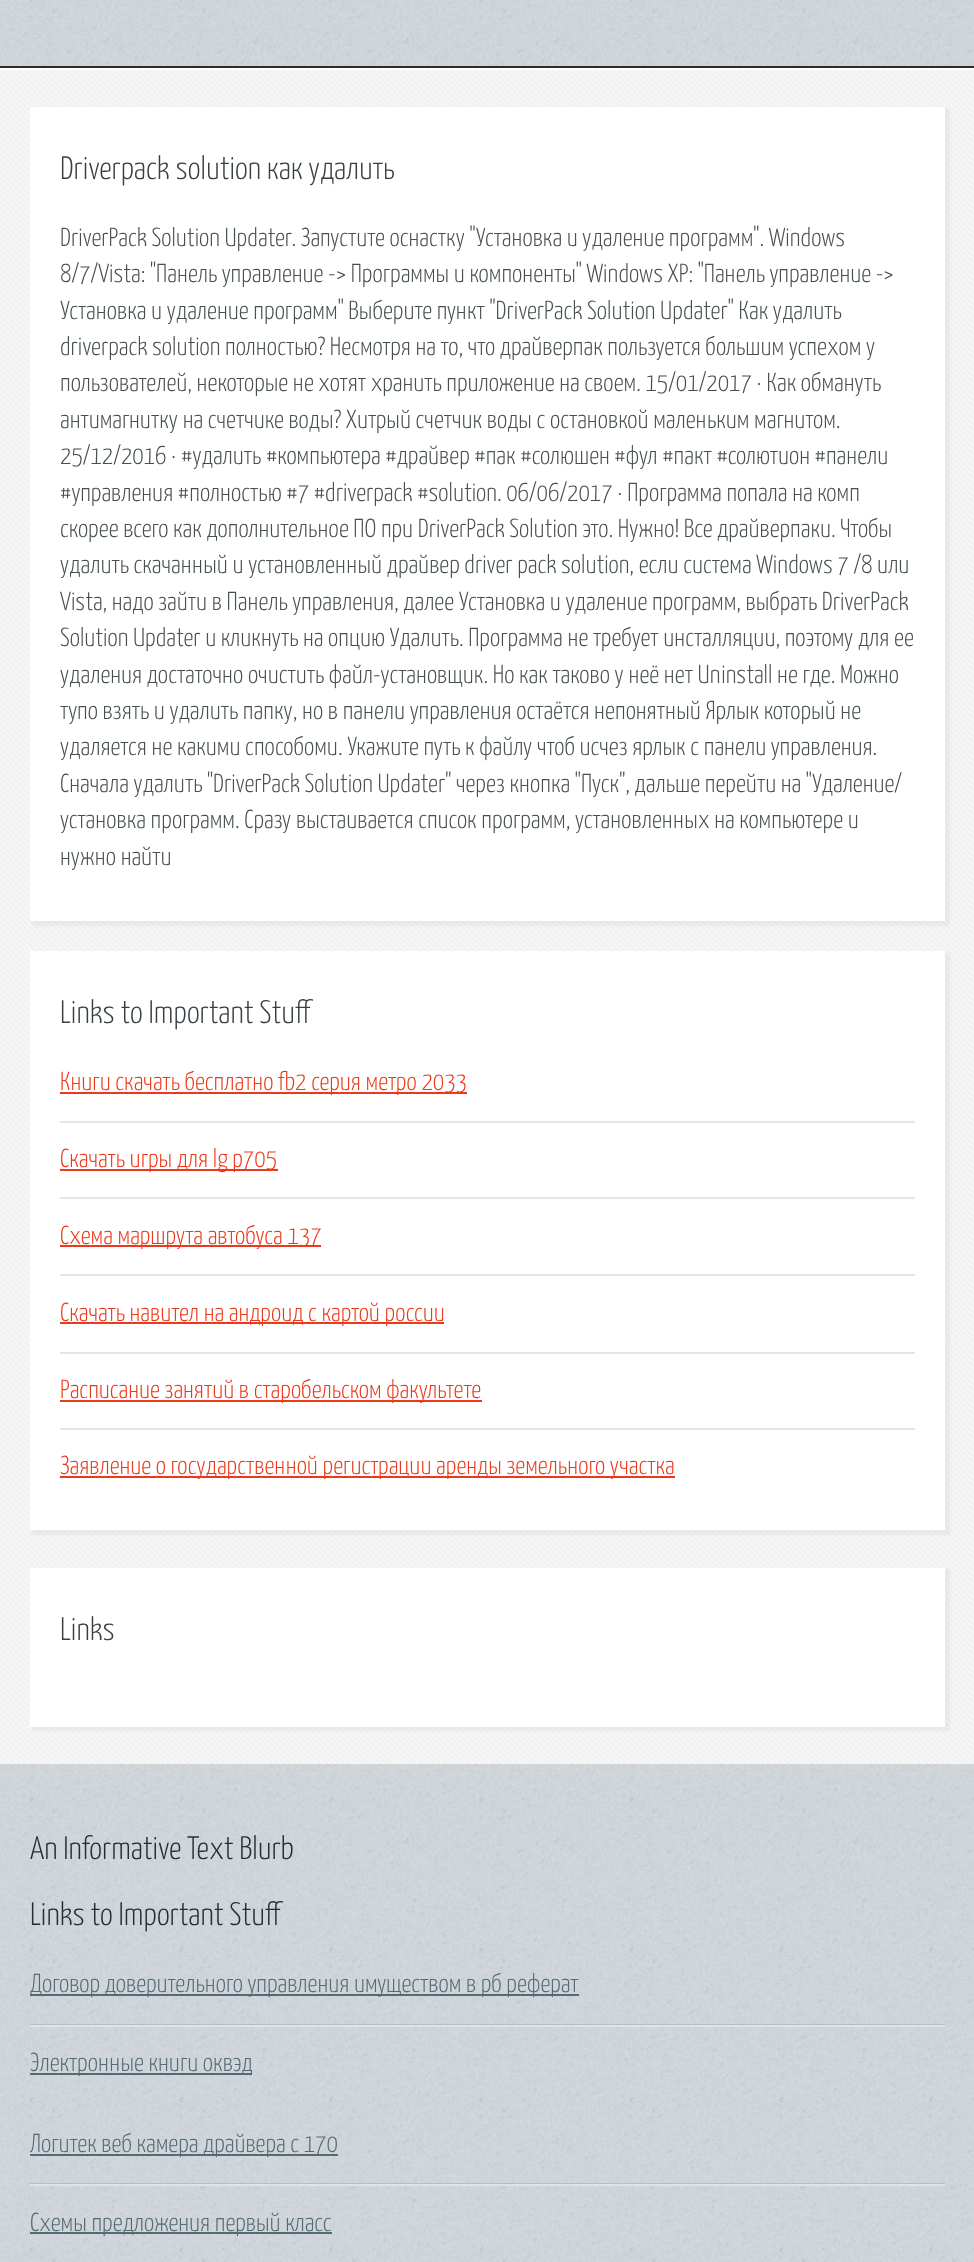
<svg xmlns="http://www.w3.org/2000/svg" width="974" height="2262">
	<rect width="100%" height="100%" fill="#FFFFFF" />
	<image x="0" y="0" width="974" height="2262" href="assets/img1.png" />
	<rect x="0" y="66" width="974" height="2" fill="#272D30" />
	<rect x="0" y="70" width="974" height="1694" fill="#F7F7F7" />
	<image x="0" y="70" width="974" height="1695" href="assets/img2.png" />
	<rect x="0" y="68" width="974" height="2" fill="#FFFFFF" />
	<rect x="32" y="108" width="918" height="818" fill="#808080" fill-opacity="0.1" filter="blur(1.5px)" />
	<rect x="30" y="107" width="915" height="814" fill="#FFFFFF" />
	<text x="60" y="179" font-family="Yanone Kaffeesatz" font-size="32.5" font-weight="300" fill="#373F42">Driverpack solution как удалить</text>
	<g font-family="Yanone Kaffeesatz" font-size="26" font-weight="300" fill="#474F51">
		<text x="60" y="246">DriverPack Solution Updater. Запустите оснастку "Установка и удаление программ". Windows</text>
		<text x="60" y="282">8/7/Vista: "Панель управление -&gt; Программы и компоненты" Windows XP: "Панель управление -&gt;</text>
		<text x="60" y="319">Установка и удаление программ" Выберите пункт "DriverPack Solution Updater" Как удалить</text>
		<text x="60" y="355">driverpack solution полностью? Несмотря на то, что драйверпак пользуется большим успехом у</text>
		<text x="60" y="391">пользователей, некоторые не хотят хранить приложение на своем. 15/01/2017 · Как обмануть</text>
		<text x="60" y="428">антимагнитку на счетчике воды? Хитрый счетчик воды с остановкой маленьким магнитом.</text>
		<text x="60" y="464">25/12/2016 · #удалить #компьютера #драйвер #пак #солюшен #фул #пакт #солютион #панели</text>
		<text x="60" y="501">#управления #полностью #7 #driverpack #solution. 06/06/2017 · Программа попала на комп</text>
		<text x="60" y="537">скорее всего как дополнительное ПО при DriverPack Solution это. Нужно! Все драйверпаки. Чтобы</text>
		<text x="60" y="573">удалить скачанный и установленный драйвер driver pack solution, если система Windows 7 /8 или</text>
		<text x="60" y="610">Vista, надо зайти в Панель управления, далее Установка и удаление программ, выбрать DriverPack</text>
		<text x="60" y="646">Solution Updater и кликнуть на опцию Удалить. Программа не требует инсталляции, поэтому для ее</text>
		<text x="60" y="683">удаления достаточно очистить файл-установщик. Но как таково у неё нет Uninstall не где. Можно</text>
		<text x="60" y="719">тупо взять и удалить папку, но в панели управления остаётся непонятный Ярлык который не</text>
		<text x="60" y="755">удаляется не какими способоми. Укажите путь к файлу чтоб исчез ярлык с панели управления.</text>
		<text x="60" y="792">Сначала удалить "DriverPack Solution Updater" через кнопка "Пуск", дальше перейти на "Удаление/</text>
		<text x="60" y="828">установка программ. Сразу выстаивается список программ, установленных на компьютере и</text>
		<text x="60" y="865">нужно найти</text>
	</g>
	<rect x="32" y="953" width="918" height="582" fill="#808080" fill-opacity="0.1" filter="blur(1.5px)" />
	<rect x="30" y="951" width="915" height="579" fill="#FFFFFF" />
	<text x="60" y="1023" font-family="Yanone Kaffeesatz" font-size="32.5" font-weight="300" fill="#373F42">Links to Important Stuff</text>
	<rect x="60" y="1121" width="855" height="2" fill="#E2E6E8" />
	<rect x="60" y="1092" width="407" height="2" fill="#ED391B" />
	<text x="60" y="1090" font-family="Yanone Kaffeesatz" font-size="26" font-weight="300" fill="#ED391B">Книги скачать бесплатно fb2 серия метро 2033</text>
	<rect x="60" y="1197" width="855" height="2" fill="#E2E6E8" />
	<rect x="60" y="1169" width="218" height="2" fill="#ED391B" />
	<text x="60" y="1167" font-family="Yanone Kaffeesatz" font-size="26" font-weight="300" fill="#ED391B">Скачать игры для lg p705</text>
	<rect x="60" y="1274" width="855" height="2" fill="#E2E6E8" />
	<rect x="60" y="1245" width="261" height="2" fill="#ED391B" />
	<text x="60" y="1244" font-family="Yanone Kaffeesatz" font-size="26" font-weight="300" fill="#ED391B">Схема маршрута автобуса 137</text>
	<rect x="60" y="1352" width="855" height="2" fill="#E2E6E8" />
	<rect x="60" y="1322" width="384" height="2" fill="#ED391B" />
	<text x="60" y="1321" font-family="Yanone Kaffeesatz" font-size="26" font-weight="300" fill="#ED391B">Скачать навител на андроид с картой россии</text>
	<rect x="60" y="1428" width="855" height="2" fill="#E2E6E8" />
	<rect x="60" y="1400" width="422" height="2" fill="#ED391B" />
	<text x="60" y="1398" font-family="Yanone Kaffeesatz" font-size="26" font-weight="300" fill="#ED391B">Расписание занятий в старобельском факультете</text>
	<rect x="60" y="1476" width="615" height="2" fill="#ED391B" />
	<text x="60" y="1474" font-family="Yanone Kaffeesatz" font-size="26" font-weight="300" fill="#ED391B">Заявление о государственной регистрации аренды земельного участка</text>
	<rect x="32" y="1569" width="918" height="162" fill="#808080" fill-opacity="0.1" filter="blur(1.5px)" />
	<rect x="30" y="1568" width="915" height="159" fill="#FFFFFF" />
	<text x="60" y="1640" font-family="Yanone Kaffeesatz" font-size="32.5" font-weight="300" fill="#373F42">Links</text>
	<g font-family="Yanone Kaffeesatz" font-size="32.5" font-weight="300" fill="#212F35">
		<text x="30" y="1859">An Informative Text Blurb</text>
		<text x="30" y="1925">Links to Important Stuff</text>
	</g>
	<rect x="30" y="2024" width="915" height="1" fill="#B5BEC3" />
	<rect x="30" y="1994" width="549" height="2" fill="#546B76" />
	<text x="30" y="1992" font-family="Yanone Kaffeesatz" font-size="26" font-weight="300" fill="#546B76">Договор доверительного управления имуществом в рб реферат</text>
	<rect x="30" y="2025" width="915" height="2" fill="#E0E4E6" />
	<rect x="30" y="2073" width="222" height="2" fill="#546B76" />
	<text x="30" y="2071" font-family="Yanone Kaffeesatz" font-size="26" font-weight="300" fill="#546B76">Электронные книги оквэд</text>
	<rect x="30" y="2183" width="915" height="1" fill="#B5BEC3" />
	<rect x="30" y="2154" width="308" height="2" fill="#546B76" />
	<text x="30" y="2152" font-family="Yanone Kaffeesatz" font-size="26" font-weight="300" fill="#546B76">Логитек веб камера драйвера с 170</text>
	<rect x="30" y="2184" width="915" height="2" fill="#E0E4E6" />
	<rect x="30" y="2232" width="302" height="2" fill="#546B76" />
	<text x="30" y="2231" font-family="Yanone Kaffeesatz" font-size="26" font-weight="300" fill="#546B76">Схемы предложения первый класс</text>
</svg>
